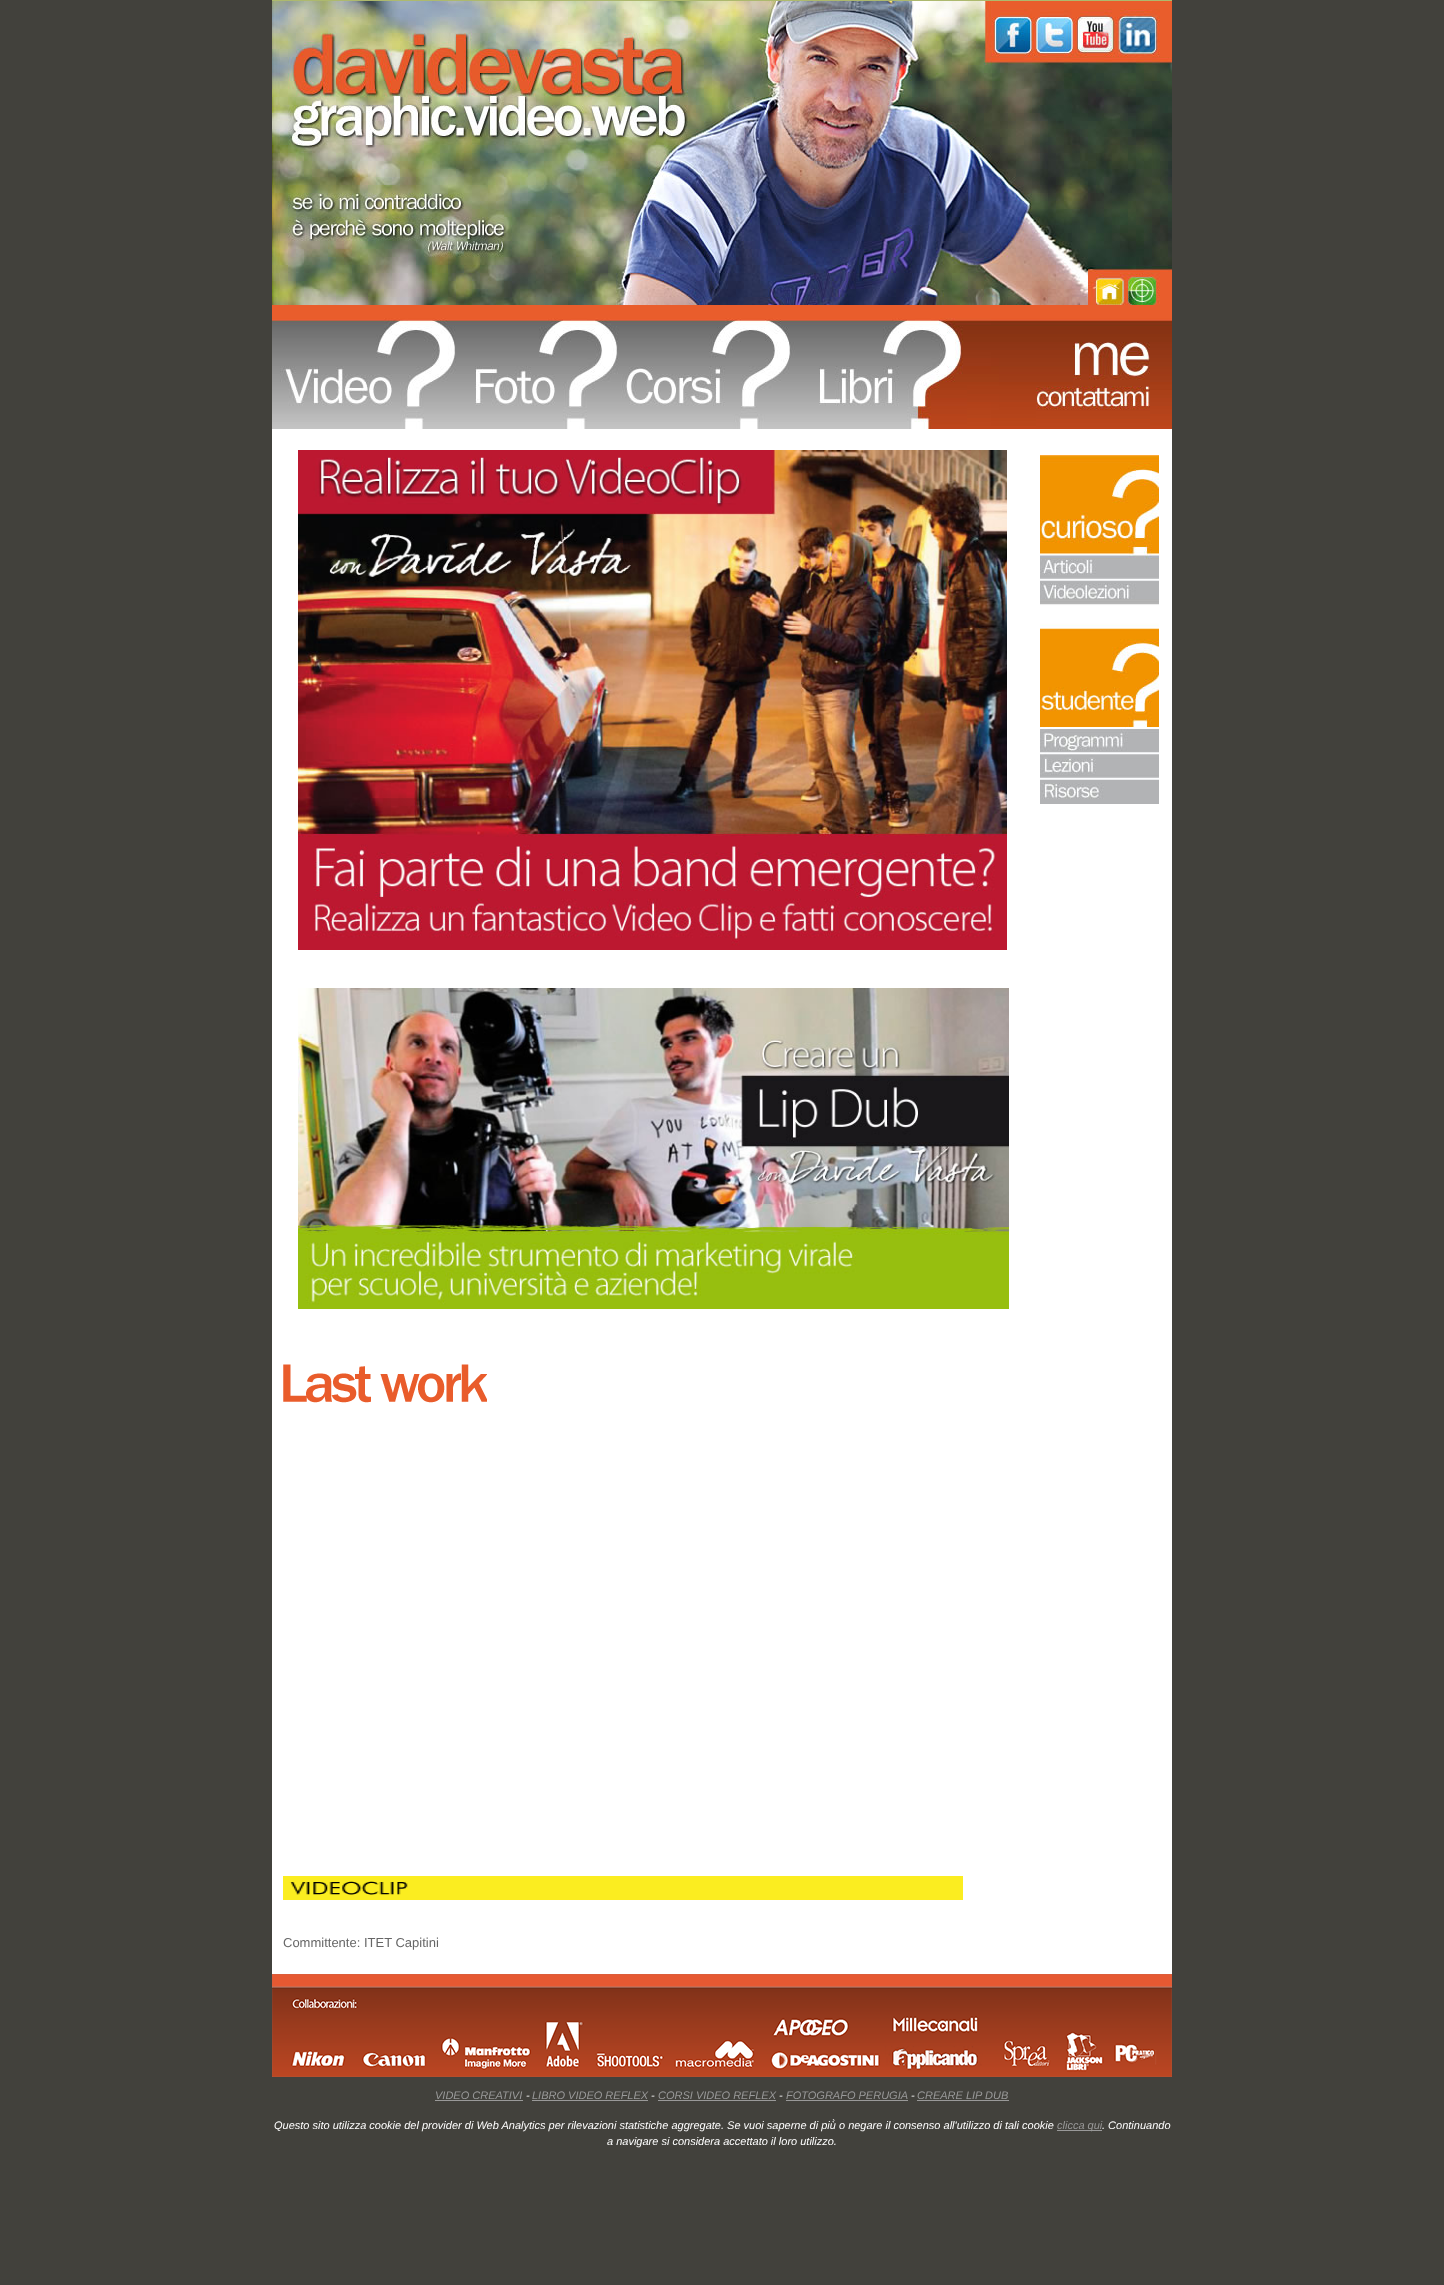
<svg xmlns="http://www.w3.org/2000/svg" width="1444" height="2285">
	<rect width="100%" height="100%" fill="#42413C" />
	<rect x="272" y="429" width="900" height="1545" fill="#FFFFFF" />
	<rect x="272" y="0" width="900" height="1" fill="#ADB96E" />
	<image x="272" y="1" width="900" height="304" href="assets/img1.png" />
	<rect x="272" y="305" width="900" height="13" fill="#E95D2C" />
	<image x="272" y="318" width="187" height="111" href="assets/img2.png" />
	<image x="459" y="318" width="162" height="111" href="assets/img3.png" />
	<image x="621" y="318" width="174" height="111" href="assets/img4.png" />
	<image x="795" y="318" width="172" height="111" href="assets/img5.png" />
	<image x="967" y="318" width="205" height="24" href="assets/img6.png" />
	<image x="967" y="342" width="106" height="44" href="assets/img7.png" />
	<image x="1073" y="342" width="77" height="38" href="assets/img8.png" />
	<image x="1150" y="342" width="22" height="87" href="assets/img9.png" />
	<rect x="1073" y="380" width="77" height="6" fill="#A43E18" />
	<image x="967" y="386" width="69" height="43" href="assets/img10.png" />
	<image x="1036" y="386" width="114" height="25" href="assets/img11.png" />
	<image x="1036" y="411" width="114" height="18" href="assets/img12.png" />
	<image x="1040" y="455" width="119" height="349" href="assets/img13.png" />
	<image x="298" y="450" width="709" height="500" href="assets/img14.png" />
	<image x="298" y="988" width="711" height="321" href="assets/img15.png" />
	<image x="283" y="1364" width="204" height="39" href="assets/img16.png" />
	<image x="283" y="1876" width="680" height="24" href="assets/img17.png" />
	<text x="283" y="1947" font-family="Liberation Sans" font-size="13" fill="#666666">Committente: ITET Capitini</text>
	<image x="272" y="1974" width="900" height="103" href="assets/img18.png" />
	<text x="435" y="2099" font-family="Liberation Sans" font-size="11" font-style="italic" fill="#999999">VIDEO CREATIVI</text>
	<rect x="435" y="2100" width="88" height="1" fill="#999999" />
	<text x="526" y="2099" font-family="Liberation Sans" font-size="11" font-style="italic" fill="#FFFFFF">-</text>
	<text x="532" y="2099" font-family="Liberation Sans" font-size="11" font-style="italic" fill="#999999">LIBRO VIDEO REFLEX</text>
	<rect x="532" y="2100" width="116" height="1" fill="#999999" />
	<text x="651" y="2099" font-family="Liberation Sans" font-size="11" font-style="italic" fill="#FFFFFF">-</text>
	<text x="658" y="2099" font-family="Liberation Sans" font-size="11" font-style="italic" fill="#999999">CORSI VIDEO REFLEX</text>
	<rect x="658" y="2100" width="118" height="1" fill="#999999" />
	<text x="779" y="2099" font-family="Liberation Sans" font-size="11" font-style="italic" fill="#FFFFFF">-</text>
	<text x="786" y="2099" font-family="Liberation Sans" font-size="11" font-style="italic" fill="#999999">FOTOGRAFO PERUGIA</text>
	<rect x="786" y="2100" width="122" height="1" fill="#999999" />
	<text x="911" y="2099" font-family="Liberation Sans" font-size="11" font-style="italic" fill="#FFFFFF">-</text>
	<text x="917" y="2099" font-family="Liberation Sans" font-size="11" font-style="italic" fill="#999999">CREARE LIP DUB</text>
	<rect x="917" y="2100" width="92" height="1" fill="#999999" />
	<text x="274" y="2129" font-family="Liberation Sans" font-size="11" font-style="italic" fill="#FFFFFF">Questo sito utilizza cookie del provider di Web Analytics per rilevazioni statistiche aggregate. Se vuoi saperne di più̀ o negare il consenso all'utilizzo di tali cookie</text>
	<rect x="1057" y="2130" width="45" height="1" fill="#999999" />
	<text x="1057" y="2129" font-family="Liberation Sans" font-size="11" font-style="italic" fill="#999999">clicca qui</text>
	<g font-family="Liberation Sans" font-size="11" font-style="italic" fill="#FFFFFF">
		<text x="1102" y="2129">. Continuando</text>
		<text x="607" y="2145">a navigare si considera accettato il loro utilizzo.</text>
	</g>
</svg>
